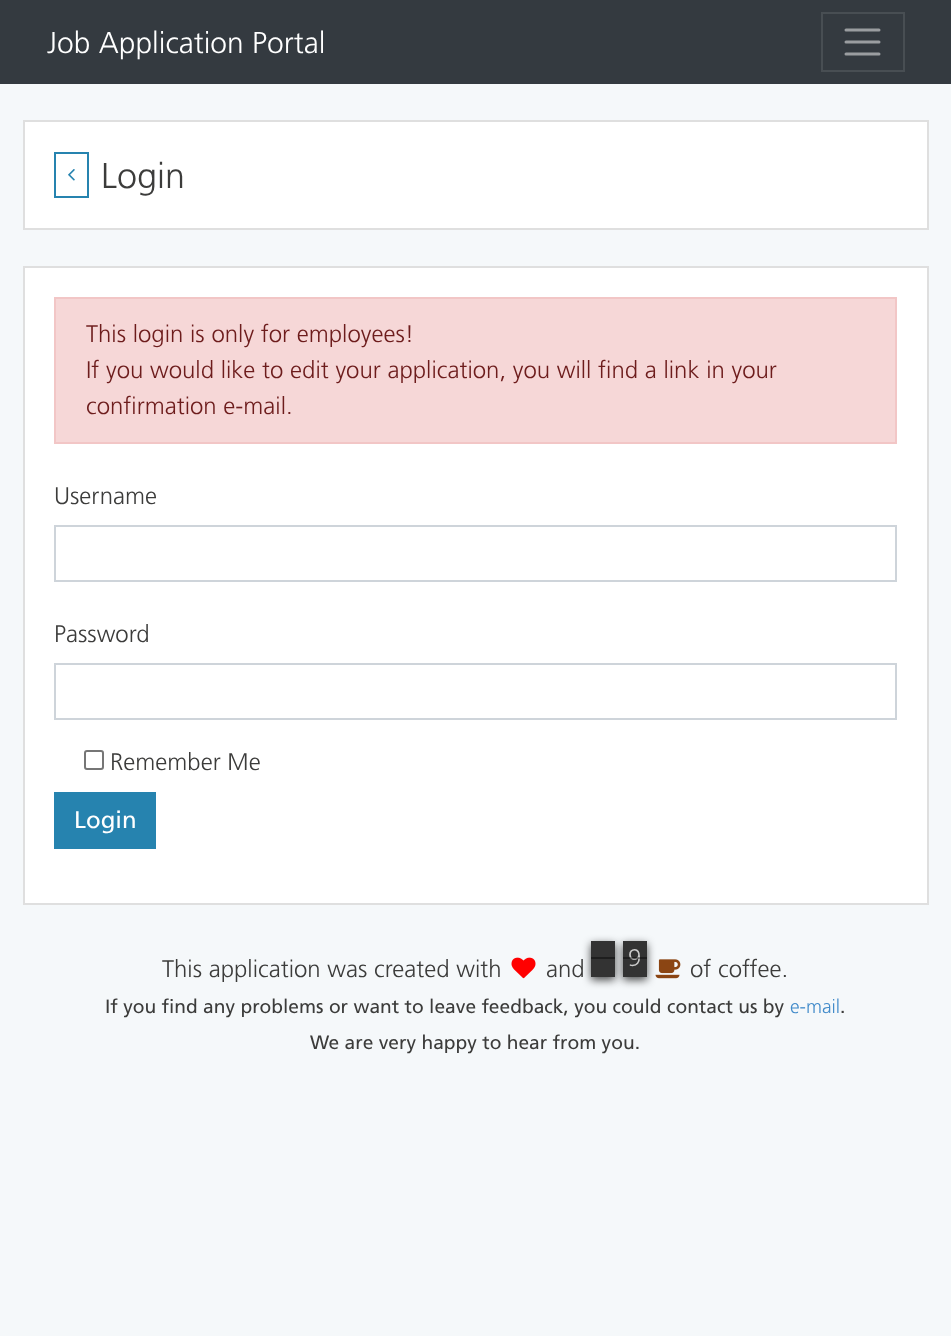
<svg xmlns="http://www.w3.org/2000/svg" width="951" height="1336">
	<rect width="100%" height="100%" fill="#F5F8FA" />
	<rect x="0" y="0" width="951" height="84" fill="#343A40" />
	<text x="47" y="53" font-family="Frutiger" font-size="30" font-weight="300" fill="#FFFFFF">Job Application Portal</text>
	<rect x="822" y="13" width="82" height="58" fill="none" stroke="#484E53" stroke-width="2" />
	<path d="M846 30H879M846 42H879M846 54H879" fill="none" stroke="#9A9DA0" stroke-width="3" stroke-linecap="round" />
	<rect x="24" y="121" width="904" height="108" fill="#FFFFFF" stroke="#DFDFDF" stroke-width="2" />
	<rect x="55" y="153" width="33" height="44" fill="none" stroke="#2683AF" stroke-width="2" />
	<image x="68" y="169" width="7" height="12" href="assets/img1.png" />
	<text x="101" y="188" font-family="Frutiger" font-size="36" font-weight="300" fill="#3C3C3B">Login</text>
	<rect x="24" y="267" width="904" height="637" fill="#FFFFFF" stroke="#DFDFDF" stroke-width="2" />
	<rect x="55" y="298" width="841" height="145" fill="#F6D7D7" stroke="#F2C6C6" stroke-width="2" />
	<g font-family="Frutiger" font-size="24" font-weight="300" fill="#6D1C1C">
		<text x="86" y="342">This login is only for employees!</text>
		<text x="86" y="378">If you would like to edit your application, you will find a link in your</text>
		<text x="86" y="414">confirmation e-mail.</text>
	</g>
	<text x="54" y="504" font-family="Frutiger" font-size="24" font-weight="300" fill="#3C3C3B">Username</text>
	<rect x="55" y="526" width="841" height="55" fill="none" stroke="#CED4DA" stroke-width="2" />
	<text x="54" y="642" font-family="Frutiger" font-size="24" font-weight="300" fill="#3C3C3B">Password</text>
	<rect x="55" y="664" width="841" height="55" fill="none" stroke="#CED4DA" stroke-width="2" />
	<rect x="85" y="751" width="18" height="18" rx="2" fill="none" stroke="#767676" stroke-width="2" />
	<text x="110" y="770" font-family="Frutiger" font-size="24" font-weight="300" fill="#3C3C3B">Remember Me</text>
	<rect x="54" y="792" width="102" height="57" fill="#2683AF" />
	<text x="74" y="828" font-family="Frutiger" font-size="24" fill="#FFFFFF">Login</text>
	<rect x="591" y="944" width="24" height="36" fill="#000000" fill-opacity="0.7" filter="blur(4px)" />
	<image x="655" y="959" width="26" height="20" href="assets/img3.png" />
	<rect x="623" y="944" width="24" height="36" fill="#000000" fill-opacity="0.7" filter="blur(4px)" />
	<rect x="591" y="941" width="24" height="36" fill="#333333" />
	<rect x="591" y="957" width="24" height="2" fill="#000000" fill-opacity="0.4" />
	<rect x="623" y="941" width="24" height="36" fill="#333333" />
	<text x="628" y="966" font-family="Frutiger" font-size="24" font-weight="300" fill="#CCCCCC">9</text>
	<rect x="623" y="957" width="24" height="2" fill="#000000" fill-opacity="0.4" />
	<text x="162" y="977" font-family="Frutiger" font-size="24" font-weight="300" fill="#3C3C3B">This application was created with</text>
	<image x="511" y="957" width="25" height="22" href="assets/img2.png" />
	<g font-family="Frutiger" font-size="24" font-weight="300" fill="#3C3C3B">
		<text x="546" y="977">and</text>
		<text x="690" y="977">of coffee.</text>
	</g>
	<text x="105" y="1013" font-family="Frutiger" font-size="19.2" fill="#3C3C3B">If you find any problems or want to leave feedback, you could contact us by</text>
	<text x="790" y="1013" font-family="Frutiger" font-size="19.2" font-weight="300" fill="#428BCA">e-mail</text>
	<g font-family="Frutiger" font-size="19.2" fill="#3C3C3B">
		<text x="840" y="1013">.</text>
		<text x="310" y="1049">We are very happy to hear from you.</text>
	</g>
</svg>
